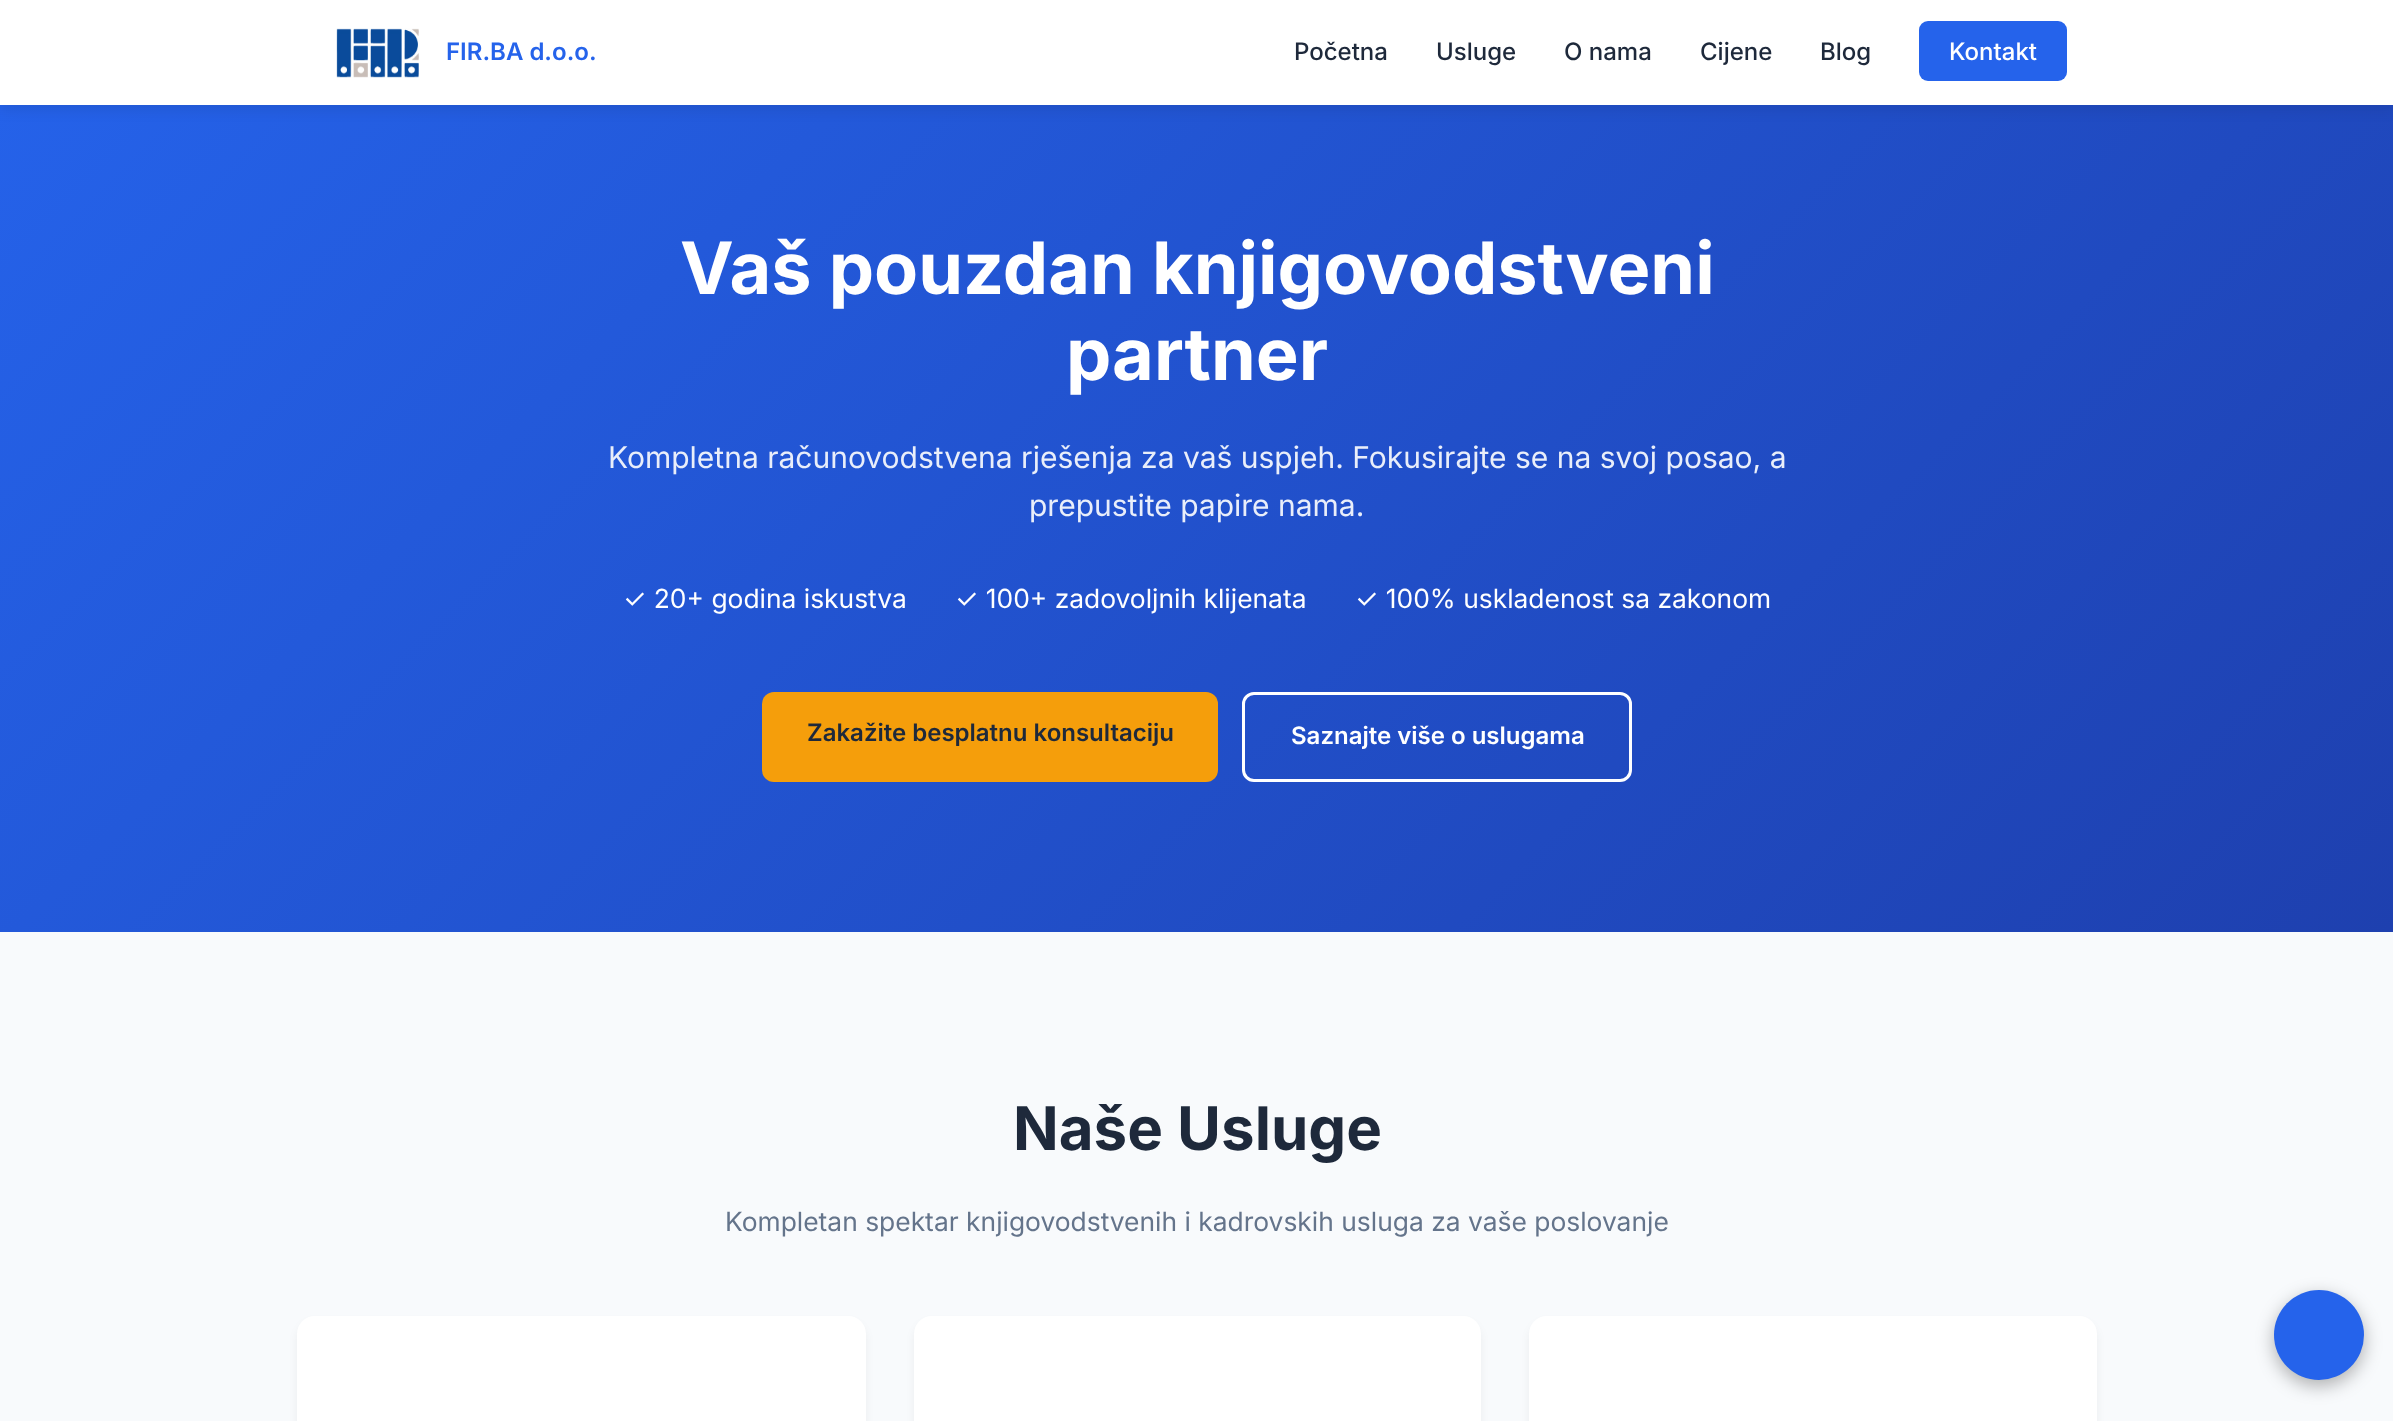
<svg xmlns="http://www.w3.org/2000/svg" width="2393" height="1421">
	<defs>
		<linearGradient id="g1" gradientUnits="userSpaceOnUse" x1="366" y1="-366" x2="2028" y2="1297"><stop offset="0" stop-color="#2563EB" /><stop offset="1" stop-color="#1E40AF" /></linearGradient>
	</defs>
	<rect width="100%" height="100%" fill="#FFFFFF" />
	<rect x="0" y="105" width="2393" height="827" fill="url(#g1)" />
	<rect x="0" y="3" width="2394" height="105" fill="#000000" fill-opacity="0.1" filter="blur(7.5px)" />
	<rect x="0" y="0" width="2393" height="105" fill="#FFFFFF" />
	<image x="336" y="28" width="83" height="50" href="assets/img1.png" />
	<text x="446" y="60" font-family="Inter" font-size="24" font-weight="600" fill="#2563EB">FIR.BA d.o.o.</text>
	<g font-family="Inter" font-size="24" font-weight="500" fill="#1E293B">
		<text x="1294" y="60">Početna</text>
		<text x="1436" y="60">Usluge</text>
		<text x="1564" y="60">O nama</text>
		<text x="1700" y="60">Cijene</text>
		<text x="1820" y="60">Blog</text>
	</g>
	<rect x="1919" y="21" width="148" height="60" rx="9" fill="#2563EB" />
	<text x="1949" y="60" font-family="Inter" font-size="24" font-weight="500" fill="#FFFFFF">Kontakt</text>
	<g font-family="Inter" font-size="72" font-weight="700" fill="#FFFFFF">
		<text x="680" y="294">Vaš pouzdan knjigovodstveni</text>
		<text x="1066" y="380">partner</text>
	</g>
	<g font-family="Inter" font-size="30" fill="#E9EEFA">
		<text x="608" y="468">Kompletna računovodstvena rješenja za vaš uspjeh. Fokusirajte se na svoj posao, a</text>
		<text x="1029" y="516">prepustite papire nama.</text>
	</g>
	<g font-family="Inter" font-size="26.4" fill="#FFFFFF">
		<text x="623" y="608">✓ 20+ godina iskustva</text>
		<text x="955" y="608">✓ 100+ zadovoljnih klijenata</text>
		<text x="1355" y="608">✓ 100% uskladenost sa zakonom</text>
	</g>
	<rect x="762" y="692" width="456" height="90" rx="12" fill="#F59E0B" />
	<text x="807" y="741" font-family="Inter" font-size="24" font-weight="600" fill="#1E293B">Zakažite besplatnu konsultaciju</text>
	<rect x="1243.5" y="693.5" width="387" height="87" rx="10.5" fill="none" stroke="#FFFFFF" stroke-width="3" />
	<text x="1291" y="744" font-family="Inter" font-size="24" font-weight="600" fill="#FFFFFF">Saznajte više o uslugama</text>
	<rect x="0" y="932" width="2393" height="489" fill="#F8FAFC" />
	<text x="1013" y="1150" font-family="Inter" font-size="60" font-weight="700" fill="#1E293B">Naše Usluge</text>
	<text x="725" y="1231" font-family="Inter" font-size="26.4" fill="#64748B">Kompletan spektar knjigovodstvenih i kadrovskih usluga za vaše poslovanje</text>
	<rect x="297" y="1322" width="569" height="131" rx="18" fill="#000000" fill-opacity="0.05" filter="blur(4.5px)" />
	<rect x="297" y="1316" width="569" height="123" rx="18" fill="#FFFFFF" />
	<rect x="914" y="1322" width="567" height="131" rx="18" fill="#000000" fill-opacity="0.05" filter="blur(4.5px)" />
	<rect x="914" y="1316" width="567" height="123" rx="18" fill="#FFFFFF" />
	<rect x="1529" y="1322" width="568" height="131" rx="18" fill="#000000" fill-opacity="0.05" filter="blur(4.5px)" />
	<rect x="1529" y="1316" width="568" height="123" rx="18" fill="#FFFFFF" />
	<rect x="2274" y="1296" width="90" height="90" rx="45" fill="#000000" fill-opacity="0.3" filter="blur(9px)" />
	<circle cx="2319" cy="1335" r="45" fill="#2563EB" />
</svg>
